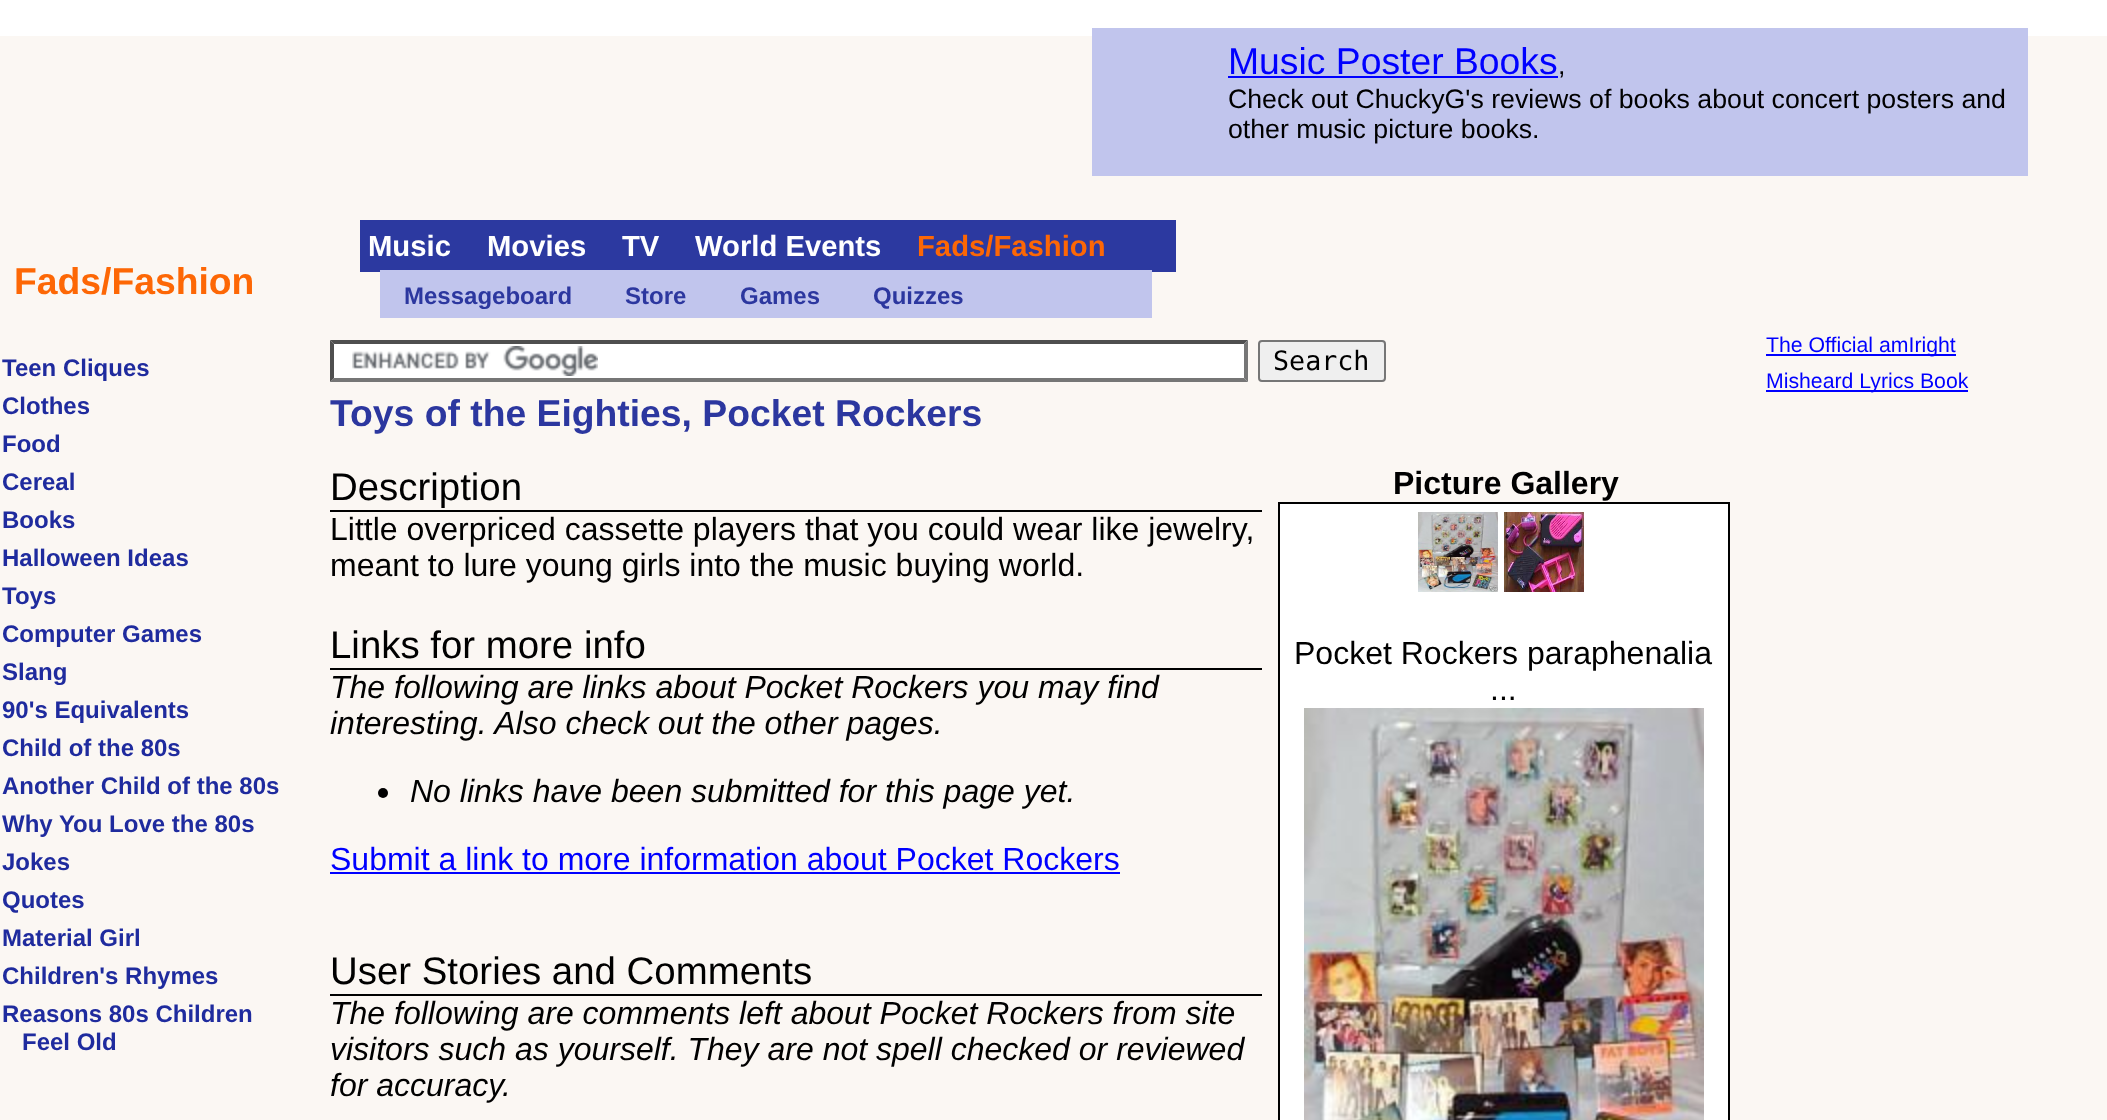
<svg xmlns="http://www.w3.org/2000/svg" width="2107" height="1120">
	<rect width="100%" height="100%" fill="#FBF7F3" />
	<rect x="0" y="0" width="2107" height="36" fill="#FFFFFF" />
	<rect x="1092" y="28" width="936" height="148" fill="#C1C5ED" />
	<text x="1228" y="74" font-family="Liberation Sans" font-size="37.3" fill="#0000FF">Music Poster Books</text>
	<rect x="1228" y="76" width="330" height="2" fill="#0000FF" />
	<g font-family="Liberation Sans" font-size="26.7" fill="#000000">
		<text x="1558" y="74">,</text>
		<text x="1228" y="108">Check out ChuckyG's reviews of books about concert posters and</text>
		<text x="1228" y="138">other music picture books.</text>
	</g>
	<rect x="360" y="220" width="816" height="52" fill="#2C39A0" />
	<g font-family="Liberation Sans" font-size="29.25" font-weight="700" fill="#FFFFFF">
		<text x="368" y="256">Music</text>
		<text x="487" y="256">Movies</text>
		<text x="622" y="256">TV</text>
		<text x="695" y="256">World Events</text>
	</g>
	<text x="917" y="256" font-family="Liberation Sans" font-size="29.25" font-weight="700" fill="#FD6705">Fads/Fashion</text>
	<text x="14" y="294" font-family="Liberation Sans" font-size="37.3" font-weight="700" fill="#FD6705">Fads/Fashion</text>
	<rect x="380" y="270" width="772" height="48" fill="#C1C5ED" />
	<g font-family="Liberation Sans" font-size="24" font-weight="700" fill="#2C379F">
		<text x="404" y="304">Messageboard</text>
		<text x="625" y="304">Store</text>
		<text x="740" y="304">Games</text>
		<text x="873" y="304">Quizzes</text>
	</g>
	<g font-family="Liberation Sans" font-size="24" font-weight="700" fill="#1F2B9E">
		<text x="2" y="376">Teen Cliques</text>
		<text x="2" y="414">Clothes</text>
		<text x="2" y="452">Food</text>
		<text x="2" y="490">Cereal</text>
		<text x="2" y="528">Books</text>
		<text x="2" y="566">Halloween Ideas</text>
		<text x="2" y="604">Toys</text>
		<text x="2" y="642">Computer Games</text>
		<text x="2" y="680">Slang</text>
		<text x="2" y="718">90's Equivalents</text>
		<text x="2" y="756">Child of the 80s</text>
		<text x="2" y="794">Another Child of the 80s</text>
		<text x="2" y="832">Why You Love the 80s</text>
		<text x="2" y="870">Jokes</text>
		<text x="2" y="908">Quotes</text>
		<text x="2" y="946">Material Girl</text>
		<text x="2" y="984">Children's Rhymes</text>
		<text x="2" y="1022">Reasons 80s Children</text>
		<text x="22" y="1050">Feel Old</text>
	</g>
	<rect x="330" y="340" width="918" height="42" fill="#FFFFFF" />
	<image x="352" y="346" width="246" height="30" href="assets/img1.png" />
	<path d="M330 340H1248L1244 344H334Z" fill="#4F4F4F" />
	<path d="M1248 340V382L1244 378V344Z" fill="#767676" />
	<path d="M1248 382H330L334 378H1244Z" fill="#767676" />
	<path d="M330 382V340L334 344V378Z" fill="#4F4F4F" />
	<rect x="1259" y="341" width="126" height="40" rx="3" fill="#EFEFEF" stroke="#767676" stroke-width="2" />
	<text x="1273" y="370" font-family="DejaVu Sans Mono" font-size="26.7" fill="#000000">Search</text>
	<text x="330" y="426" font-family="Liberation Sans" font-size="37.3" font-weight="700" fill="#2C379F">Toys of the Eighties, Pocket Rockers</text>
	<rect x="330" y="510" width="932" height="2" fill="#000000" />
	<text x="330" y="500" font-family="Liberation Sans" font-size="38.4" fill="#000000">Description</text>
	<g font-family="Liberation Sans" font-size="32" fill="#000000">
		<text x="330" y="540">Little overpriced cassette players that you could wear like jewelry,</text>
		<text x="330" y="576">meant to lure young girls into the music buying world.</text>
	</g>
	<rect x="330" y="668" width="932" height="2" fill="#000000" />
	<text x="330" y="658" font-family="Liberation Sans" font-size="38.4" fill="#000000">Links for more info</text>
	<g font-family="Liberation Sans" font-size="32" font-style="italic" fill="#000000">
		<text x="330" y="698">The following are links about Pocket Rockers you may find</text>
		<text x="330" y="734">interesting. Also check out the other pages.</text>
	</g>
	<circle cx="383" cy="793" r="5" fill="#000000" />
	<text x="410" y="802" font-family="Liberation Sans" font-size="32" font-style="italic" fill="#000000">No links have been submitted for this page yet.</text>
	<text x="330" y="870" font-family="Liberation Sans" font-size="32" fill="#0000FF">Submit a link to more information about Pocket Rockers</text>
	<rect x="330" y="872" width="790" height="2" fill="#0000FF" />
	<rect x="330" y="994" width="932" height="2" fill="#000000" />
	<text x="330" y="984" font-family="Liberation Sans" font-size="38.4" fill="#000000">User Stories and Comments</text>
	<g font-family="Liberation Sans" font-size="32" font-style="italic" fill="#000000">
		<text x="330" y="1024">The following are comments left about Pocket Rockers from site</text>
		<text x="330" y="1060">visitors such as yourself. They are not spell checked or reviewed</text>
		<text x="330" y="1096">for accuracy.</text>
	</g>
	<text x="1393" y="494" font-family="Liberation Sans" font-size="32" font-weight="700" fill="#000000">Picture Gallery</text>
	<rect x="1279" y="503" width="450" height="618" fill="#FFFFFF" stroke="#000000" stroke-width="2" />
	<image x="1418" y="512" width="80" height="80" href="assets/img2.png" />
	<image x="1504" y="512" width="80" height="80" href="assets/img3.png" />
	<g font-family="Liberation Sans" font-size="32" fill="#000000">
		<text x="1294" y="664">Pocket Rockers paraphenalia</text>
		<text x="1490" y="700">...</text>
	</g>
	<image x="1304" y="708" width="400" height="412" href="assets/img4.png" />
	<rect x="1766" y="354" width="190" height="2" fill="#0000FF" />
	<text x="1766" y="352" font-family="Liberation Sans" font-size="21.25" fill="#0000FF">The Official amIright</text>
	<rect x="1766" y="390" width="202" height="2" fill="#0000FF" />
	<text x="1766" y="388" font-family="Liberation Sans" font-size="21.25" fill="#0000FF">Misheard Lyrics Book</text>
</svg>
